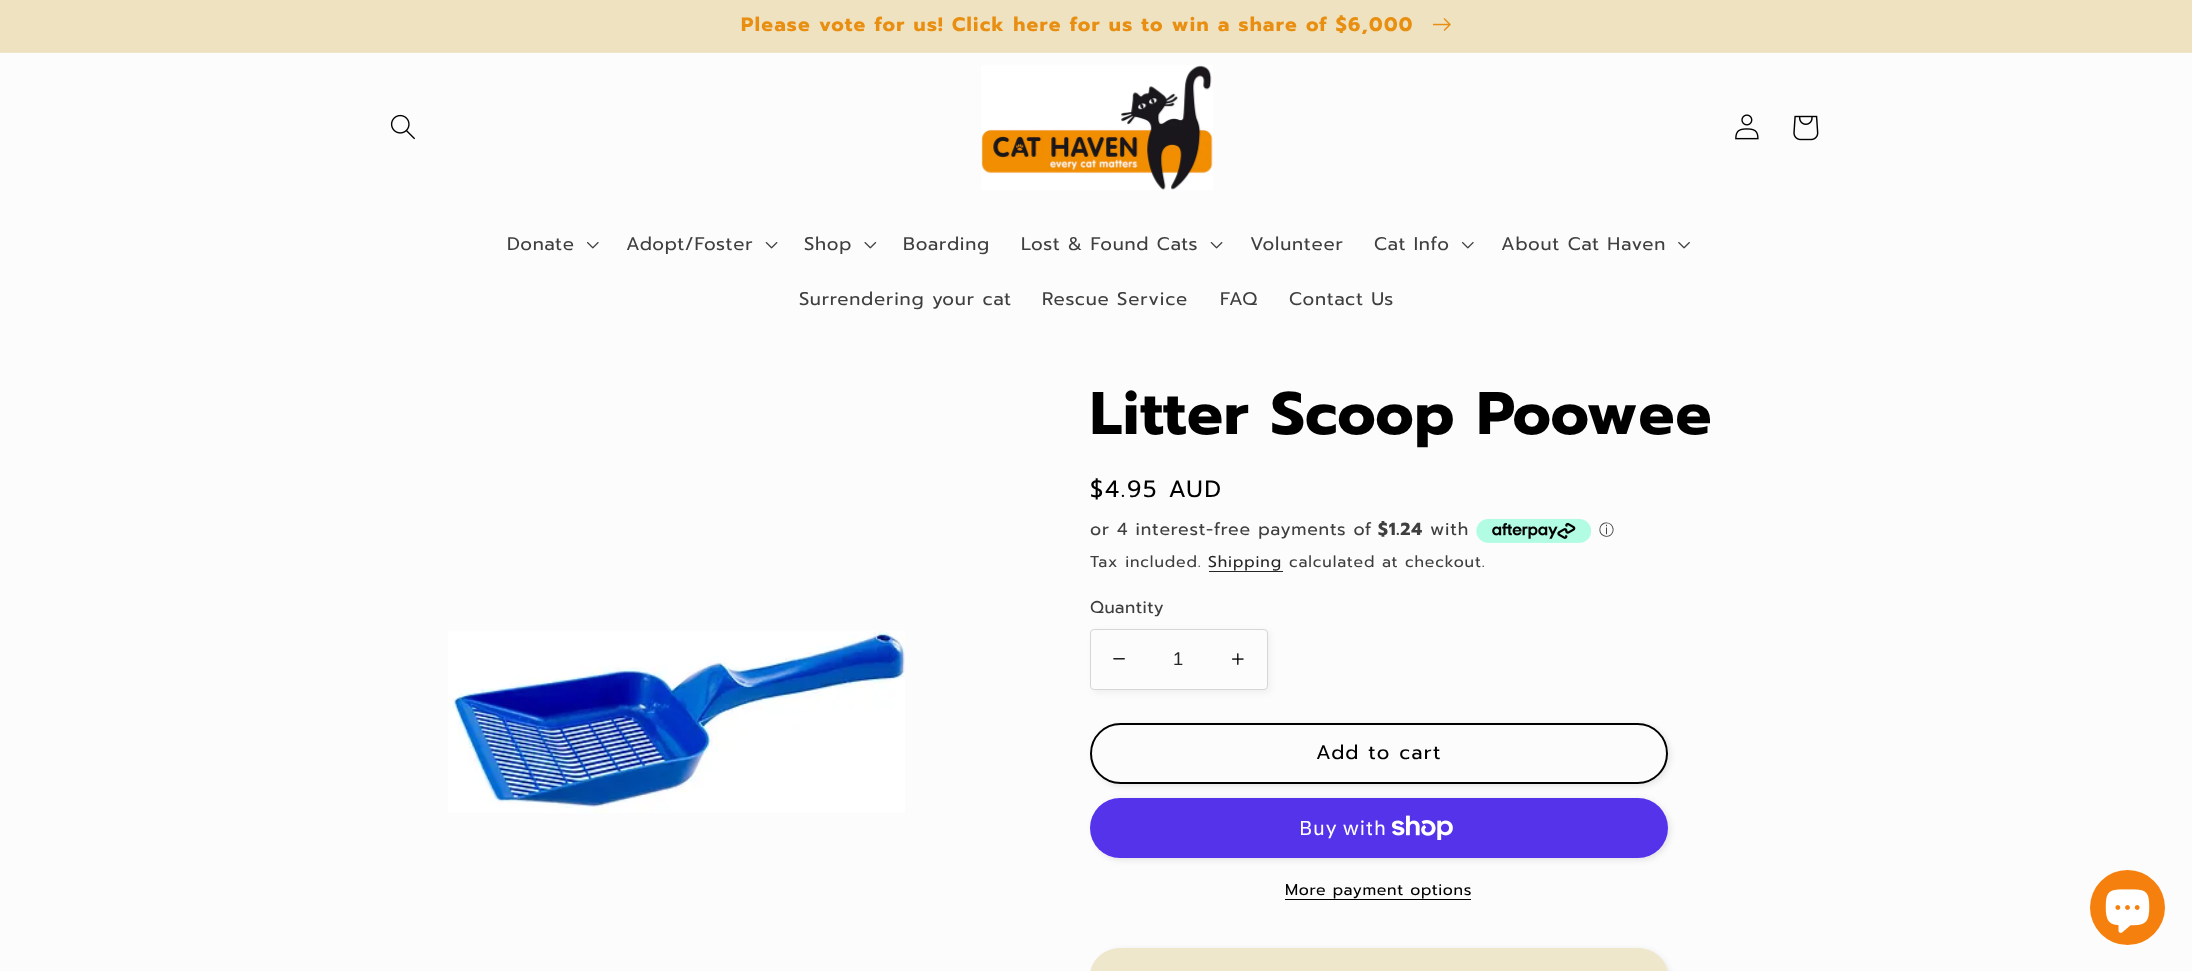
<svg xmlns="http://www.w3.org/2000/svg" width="2192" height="971">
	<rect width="100%" height="100%" fill="#FCFCFC" />
	<rect x="0" y="52" width="2192" height="1" fill="#EFE7CB" />
	<rect x="0" y="51" width="2192" height="1" fill="#EEE0BC" />
	<rect x="0" y="0" width="2192" height="51" fill="#EFE2C0" />
	<text x="741" y="31" font-family="Prompt" font-size="19.5" font-weight="700" letter-spacing="1.3" fill="#E88E11">Please vote for us! Click here for us to win a share of $6,000</text>
	<image x="1433" y="18" width="18" height="13" href="assets/img1.png" />
	<image x="390" y="114" width="25" height="26" href="assets/img2.png" />
	<image x="981" y="65" width="232" height="125" href="assets/img3.png" />
	<image x="1735" y="114" width="24" height="26" href="assets/img4.png" />
	<image x="1793" y="115" width="26" height="26" href="assets/img5.png" />
	<text x="507" y="250" font-family="Prompt" font-size="18.4" letter-spacing="0.8" fill="#3F3F3F">Donate</text>
	<image x="587" y="242" width="12" height="7" href="assets/img6.png" />
	<text x="626" y="250" font-family="Prompt" font-size="18.4" letter-spacing="0.8" fill="#3F3F3F">Adopt/Foster</text>
	<image x="765" y="242" width="13" height="7" href="assets/img7.png" />
	<text x="804" y="250" font-family="Prompt" font-size="18.4" letter-spacing="0.8" fill="#3F3F3F">Shop</text>
	<image x="864" y="242" width="13" height="7" href="assets/img8.png" />
	<g font-family="Prompt" font-size="18.4" letter-spacing="0.8" fill="#3F3F3F">
		<text x="903" y="250">Boarding</text>
		<text x="1021" y="250">Lost &amp; Found Cats</text>
	</g>
	<image x="1210" y="242" width="13" height="7" href="assets/img7.png" />
	<g font-family="Prompt" font-size="18.4" letter-spacing="0.8" fill="#3F3F3F">
		<text x="1250" y="250">Volunteer</text>
		<text x="1374" y="250">Cat Info</text>
	</g>
	<image x="1462" y="242" width="12" height="7" href="assets/img6.png" />
	<text x="1501" y="250" font-family="Prompt" font-size="18.4" letter-spacing="0.8" fill="#3F3F3F">About Cat Haven</text>
	<image x="1678" y="242" width="12" height="7" href="assets/img9.png" />
	<g font-family="Prompt" font-size="18.4" letter-spacing="0.8" fill="#3F3F3F">
		<text x="799" y="305">Surrendering your cat</text>
		<text x="1042" y="305">Rescue Service</text>
		<text x="1220" y="305">FAQ</text>
		<text x="1289" y="305">Contact Us</text>
	</g>
	<image x="448" y="631" width="457" height="182" href="assets/img10.png" />
	<text x="1090" y="434" font-family="Prompt" font-size="60" font-weight="700" letter-spacing="0.9" fill="#000000">Litter Scoop Poowee</text>
	<text x="1090" y="497" font-family="Prompt" font-size="23.5" letter-spacing="1.75" fill="#000000">$4.95 AUD</text>
	<text x="1090" y="535" font-family="Prompt" font-size="17.5" letter-spacing="0.8" fill="#3F3F3F">or 4 interest-free payments of</text>
	<text x="1378" y="535" font-family="Prompt" font-size="17.5" font-weight="700" letter-spacing="0.8" fill="#3F3F3F">$1.24</text>
	<text x="1430" y="535" font-family="Prompt" font-size="17.5" letter-spacing="0.8" fill="#3F3F3F">with</text>
	<image x="1476" y="518" width="115" height="25" href="assets/img11.png" />
	<text x="1599" y="535" font-family="WenQuanYi Zen Hei" font-size="15" font-weight="500" fill="#3F3F3F">ⓘ</text>
	<text x="1090" y="567" font-family="Prompt" font-size="15.75" letter-spacing="0.9" fill="#3F3F3F">Tax included.</text>
	<text x="1208" y="567" font-family="Prompt" font-size="15.75" letter-spacing="0.9" fill="#262626">Shipping</text>
	<rect x="1209" y="571" width="74" height="1" fill="#262626" />
	<text x="1289" y="567" font-family="Prompt" font-size="15.75" letter-spacing="0.9" fill="#3F3F3F">calculated at checkout.</text>
	<text x="1090" y="613" font-family="Prompt" font-size="17" letter-spacing="0.5" fill="#3F3F3F">Quantity</text>
	<rect x="1093" y="631" width="177" height="62" rx="4" fill="#000000" fill-opacity="0.05" filter="blur(3px)" />
	<rect x="1090" y="629" width="178" height="61" rx="4" fill="#FCFCFC" />
	<image x="1113" y="658" width="12" height="2" href="assets/img12.png" />
	<image x="1232" y="653" width="12" height="12" href="assets/img13.png" />
	<rect x="1090.5" y="629.5" width="177" height="60" rx="3.5" fill="none" stroke="#D6D6D6" />
	<text x="1173" y="665" font-family="Liberation Sans" font-size="18.4" fill="#262626">1</text>
	<rect x="1093" y="725" width="577" height="61" rx="30.5" fill="#000000" fill-opacity="0.1" filter="blur(3px)" />
	<rect x="1090" y="723" width="578" height="61" rx="30.5" fill="#FCFCFC" />
	<rect x="1090.5" y="723.5" width="577" height="60" rx="30" fill="none" stroke="#FCFCFC" />
	<rect x="1091" y="724" width="576" height="59" rx="29.5" fill="none" stroke="#000000" stroke-width="2" />
	<text x="1316" y="759" font-family="Prompt" font-size="19.75" letter-spacing="1.3" fill="#000000">Add to cart</text>
	<rect x="1093" y="800" width="577" height="60" rx="30" fill="#000000" fill-opacity="0.1" filter="blur(3px)" />
	<rect x="1090" y="798" width="578" height="60" rx="30" fill="#5433EB" />
	<text x="1299" y="835" font-family="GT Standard" font-size="20" letter-spacing="0.8" fill="#FFFFFF">Buy with</text>
	<image x="1391" y="815" width="62" height="25" href="assets/img14.png" />
	<text x="1285" y="895" font-family="Prompt" font-size="15.75" letter-spacing="0.7" fill="#000000">More payment options</text>
	<rect x="1285" y="899" width="186" height="1" fill="#000000" />
	<rect x="1093" y="950" width="577" height="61" rx="30.5" fill="#000000" fill-opacity="0.1" filter="blur(3px)" />
	<rect x="1090.5" y="948.5" width="577" height="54" rx="30" fill="#EFE7CB" stroke="#EFE7CB" />
	<circle cx="2127.5" cy="907.5" r="37.5" fill="#F5800D" />
	<image x="2105" y="889" width="45" height="44" href="assets/img15.png" />
</svg>
